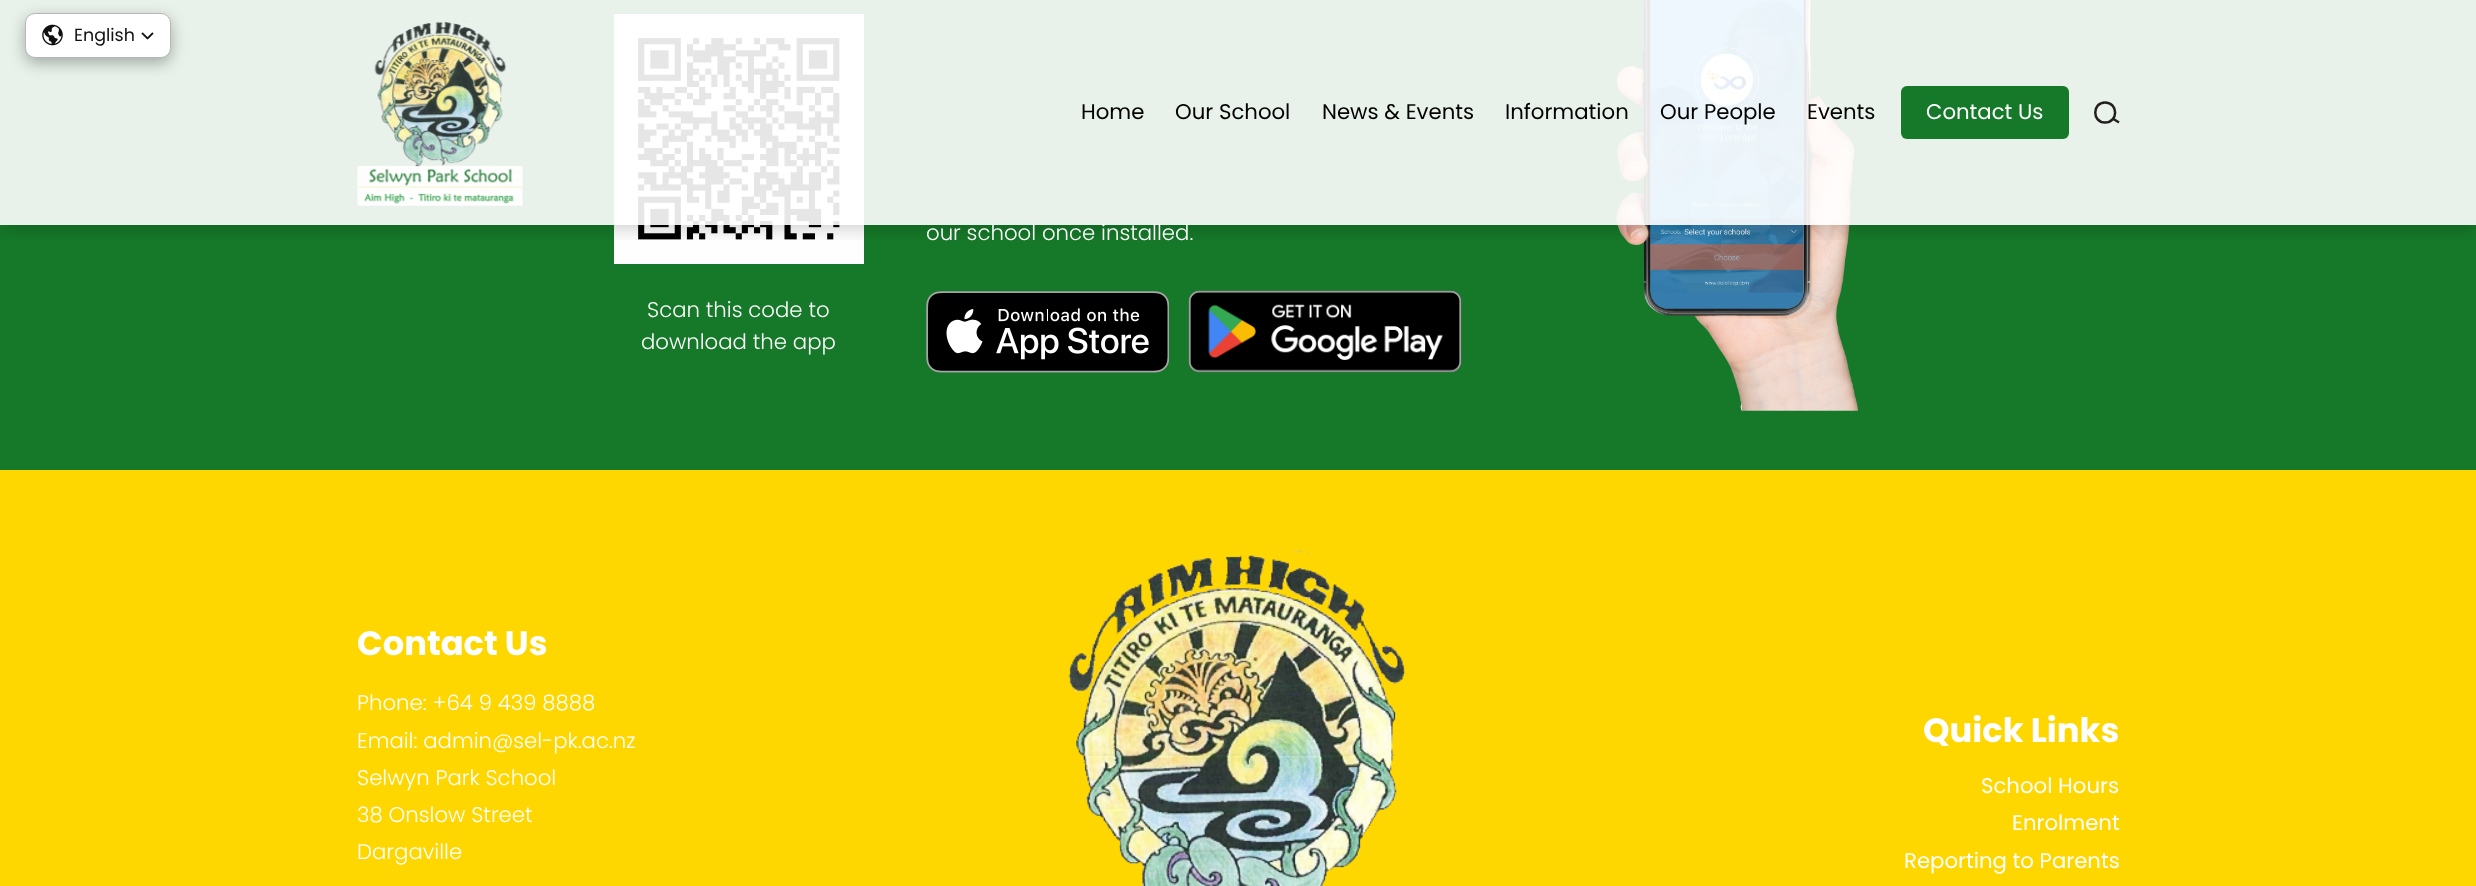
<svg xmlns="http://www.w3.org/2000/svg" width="2476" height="886">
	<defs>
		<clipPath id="clip1"><rect x="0" y="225" width="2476" height="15" /></clipPath>
	</defs>
	<rect width="100%" height="100%" fill="#FFD700" />
	<rect x="0" y="0" width="2476" height="470" fill="#157929" />
	<image x="1616" y="0" width="243" height="411" href="assets/img6.png" />
	<image x="614" y="14" width="250" height="250" href="assets/img7.png" />
	<g clip-path="url(#clip1)">
		<rect x="0" y="-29" width="2476" height="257" fill="#000000" fill-opacity="0.2" filter="blur(9.5px)" />
	</g>
	<text x="926" y="240" font-family="Poppins" font-size="21.25" font-weight="300" fill="#FFFFFF">our school once installed.</text>
	<rect x="0" y="0" width="2476" height="225" fill="#FFFFFF" fill-opacity="0.9" />
	<rect x="25" y="18" width="146" height="45" rx="10" fill="#000000" fill-opacity="0.3" filter="blur(7.5px)" />
	<rect x="25.5" y="13.5" width="145" height="44" rx="9.5" fill="#FFFFFF" stroke="#B7B7B7" />
	<image x="42" y="24" width="21" height="22" href="assets/img1.png" />
	<text x="74" y="41" font-family="Poppins" font-size="17.5" fill="#111111">English</text>
	<image x="141" y="32" width="13" height="8" href="assets/img2.png" />
	<image x="357" y="20" width="166" height="186" href="assets/img3.png" />
	<g font-family="Poppins" font-size="21.25" fill="#000000">
		<text x="1081" y="119">Home</text>
		<text x="1175" y="119">Our School</text>
		<text x="1322" y="119">News &amp; Events</text>
		<text x="1505" y="119">Information</text>
		<text x="1660" y="119">Our People</text>
		<text x="1807" y="119">Events</text>
	</g>
	<rect x="1901" y="86" width="168" height="53" rx="6" fill="#157929" />
	<text x="1926" y="119" font-family="Poppins" font-size="21.25" fill="#FFFFFF">Contact Us</text>
	<path d="M2119 122.5L2113.5 119" fill="none" stroke="#231F20" stroke-width="2.5" stroke-linejoin="round" />
	<path d="M2105 122.5C2118.5 122.5 2118.5 102.5 2105 102.5C2092 102.5 2092 122.5 2105 122.5Z" fill="none" stroke="#231F20" stroke-width="2.5" stroke-linecap="round" stroke-linejoin="round" />
	<image x="926" y="291" width="243" height="82" href="assets/img4.png" />
	<image x="1188" y="290" width="274" height="83" href="assets/img5.png" />
	<g font-family="Poppins" font-size="21.25" font-weight="300" fill="#FFFFFF">
		<text x="647" y="317">Scan this code to</text>
		<text x="641" y="349">download the app</text>
	</g>
	<text x="357" y="655" font-family="Poppins" font-size="33.75" font-weight="700" fill="#FFFFFF">Contact Us</text>
	<g font-family="Poppins" font-size="21.25" font-weight="300" fill="#FFFFFF">
		<text x="357" y="710">Phone: +64 9 439 8888</text>
		<text x="357" y="748">Email: admin@sel-pk.ac.nz</text>
		<text x="357" y="785">Selwyn Park School</text>
		<text x="357" y="822">38 Onslow Street</text>
		<text x="357" y="859">Dargaville</text>
	</g>
	<image x="1068" y="550" width="338" height="336" href="assets/img8.png" />
	<text x="1923" y="742" font-family="Poppins" font-size="33.75" font-weight="700" fill="#FFFFFF">Quick Links</text>
	<g font-family="Poppins" font-size="21.25" fill="#FFFFFF">
		<text x="1981" y="793">School Hours</text>
		<text x="2012" y="830">Enrolment</text>
		<text x="1904" y="868">Reporting to Parents</text>
	</g>
</svg>
